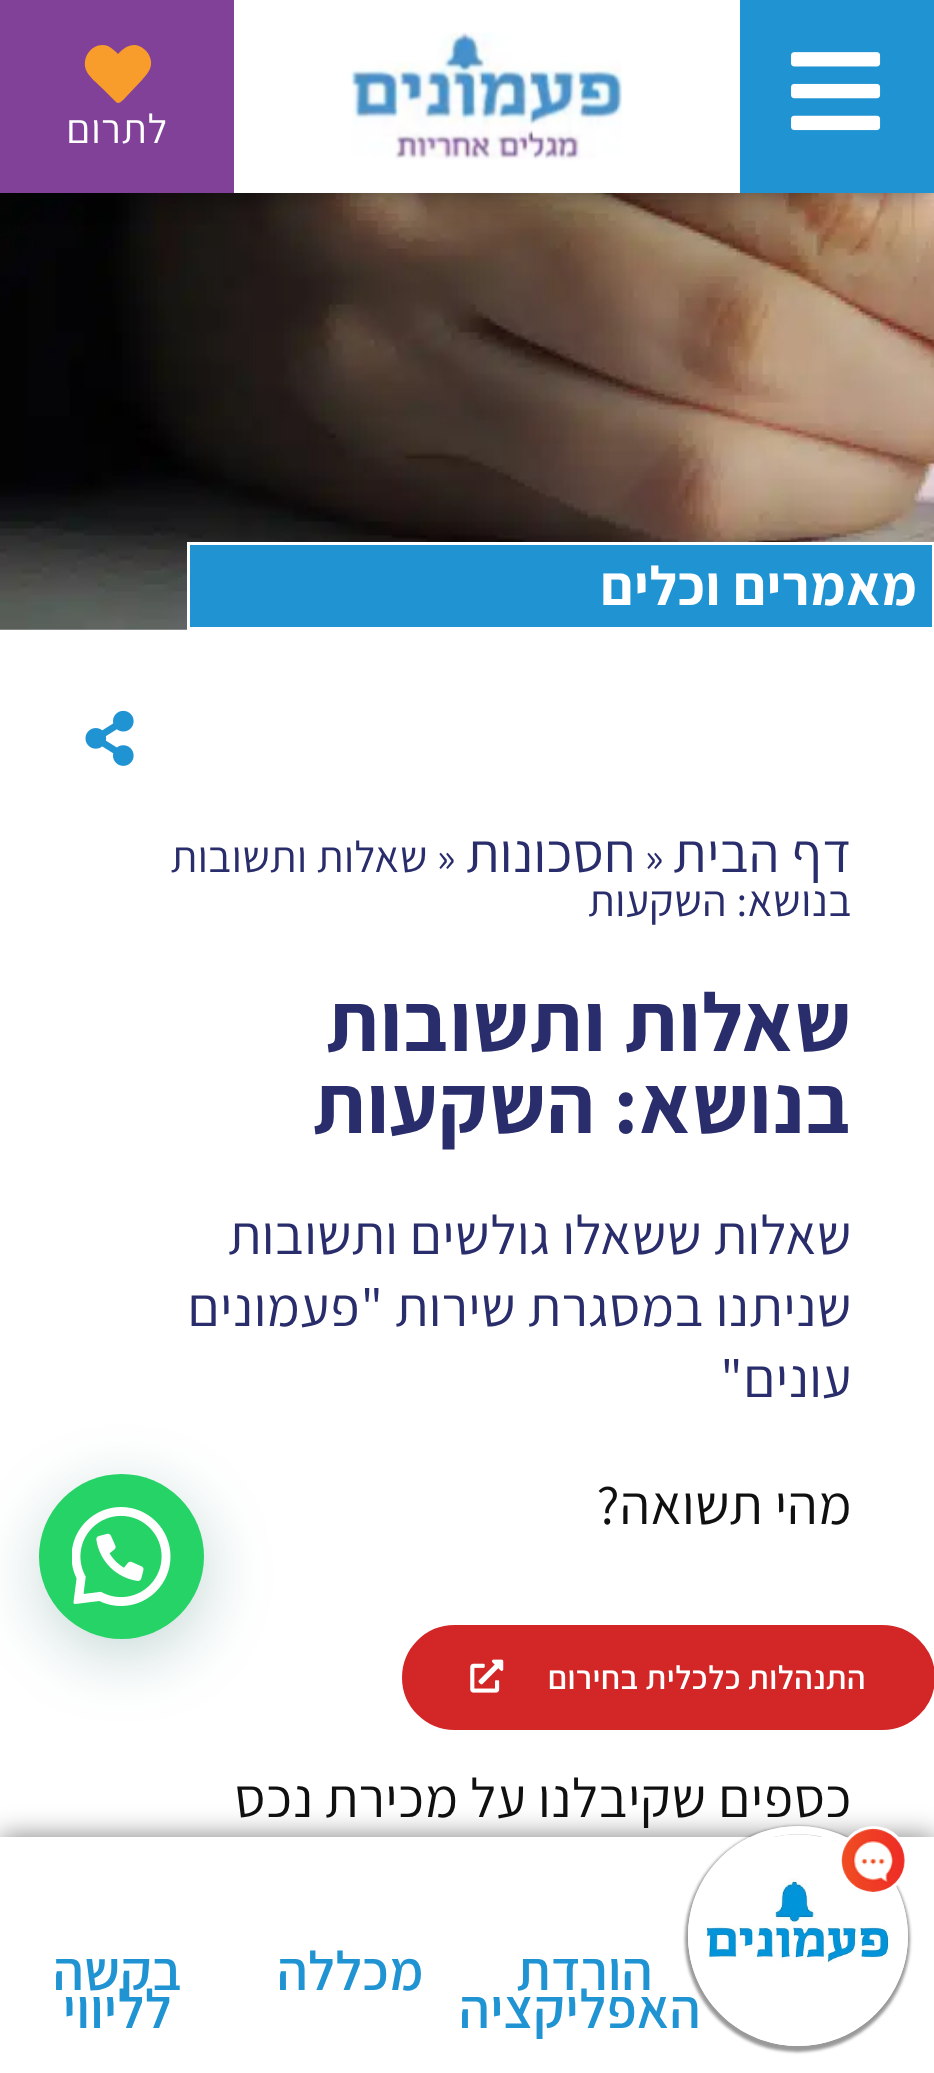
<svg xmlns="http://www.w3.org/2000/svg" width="934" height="2073">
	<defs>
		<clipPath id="clip1"><path d="M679 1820H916V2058H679ZM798 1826C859 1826 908 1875 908 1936C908 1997 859 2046 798 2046C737 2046 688 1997 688 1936C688 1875 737 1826 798 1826Z" clip-rule="evenodd" /></clipPath>
	</defs>
	<rect width="100%" height="100%" fill="#FFFFFF" />
	<image x="0" y="193" width="934" height="437" href="assets/img3.png" />
	<rect x="0" y="0" width="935" height="193" fill="#000000" fill-opacity="0.5" filter="blur(14px)" />
	<rect x="234" y="0" width="506" height="193" fill="#FFFFFF" />
	<rect x="740" y="0" width="194" height="193" fill="#2093D2" />
	<image x="791" y="52" width="90" height="79" href="assets/img1.png" />
	<image x="351" y="32" width="271" height="129" href="assets/img2.png" />
	<rect x="0" y="0" width="234" height="193" fill="#824199" />
	<path d="M144 49C148 52 150 56 151 61C152 69 147 74 142 80L125 98C123 100 119 105 116 102L103 89C98 84 88 76 86 70C81 56 94 41 108 46C112 48 115 51 118 54C125 46 135 41 144 49Z" fill="#F89D2C" />
	<text x="168" y="143" font-family="Assistant" font-size="41" letter-spacing="1" direction="rtl" fill="#FFFFFF">לתרום</text>
	<rect x="188.5" y="543.5" width="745" height="85" fill="#2093D2" stroke="#FFFFFF" stroke-width="3" />
	<text x="918" y="605" font-family="Assistant" font-size="55" font-weight="700" letter-spacing="1.1" direction="rtl" fill="#FFFFFF">מאמרים וכלים</text>
	<image x="85" y="710" width="49" height="56" href="assets/img4.png" />
	<text x="852" y="872" font-family="Assistant" font-size="55" letter-spacing="0.55" direction="rtl" fill="#292D6B">דף הבית</text>
	<text x="645" y="872" font-family="Assistant" font-size="44" letter-spacing="0.55" fill="#292D6B">»</text>
	<text x="636" y="872" font-family="Assistant" font-size="55" letter-spacing="0.55" direction="rtl" fill="#292D6B">חסכונות</text>
	<text x="437" y="872" font-family="Assistant" font-size="44" letter-spacing="0.55" fill="#292D6B">»</text>
	<g font-family="Assistant" font-size="44" letter-spacing="0.55" direction="rtl" fill="#292D6B">
		<text x="428" y="872">שאלות ותשובות</text>
		<text x="852" y="916">בנושא: השקעות</text>
	</g>
	<g font-family="Assistant" font-size="82.5" font-weight="700" letter-spacing="1.6" direction="rtl" fill="#292D6B">
		<text x="852" y="1051">שאלות ותשובות</text>
		<text x="852" y="1133">בנושא: השקעות</text>
	</g>
	<g font-family="Assistant" font-size="55" letter-spacing="0.55" direction="rtl" fill="#292D6B">
		<text x="852" y="1254">שאלות ששאלו גולשים ותשובות</text>
		<text x="852" y="1326">שניתנו במסגרת שירות "פעמונים</text>
		<text x="852" y="1397">עונים"</text>
	</g>
	<g font-family="Assistant" font-size="55" letter-spacing="0.55" direction="rtl" fill="#101010">
		<text x="852" y="1524">מהי תשואה?</text>
		<text x="852" y="1817">כספים שקיבלנו על מכירת נכס</text>
	</g>
	<rect x="41" y="1491" width="165" height="165" rx="82.5" fill="#075E54" fill-opacity="0.24" filter="blur(33px)" />
	<circle cx="121.5" cy="1556.5" r="82.5" fill="#25D366" />
	<image x="72" y="1507" width="99" height="99" href="assets/img5.png" />
	<rect x="403.5" y="1626.5" width="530" height="102" rx="51" fill="#D32627" stroke="#D32627" stroke-width="3" />
	<text x="866" y="1689" font-family="Assistant" font-size="33" font-weight="600" letter-spacing="0.55" direction="rtl" fill="#FFFFFF">התנהלות כלכלית בחירום</text>
	<image x="470" y="1659" width="34" height="34" href="assets/img6.png" />
	<rect x="0" y="1837" width="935" height="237" fill="#000000" fill-opacity="0.5" filter="blur(14px)" />
	<rect x="0" y="1837" width="934" height="236" fill="#FFFFFF" />
	<g font-family="Assistant" font-size="55" font-weight="600" letter-spacing="0.5" direction="rtl" fill="#2093D2">
		<text x="653" y="1990">הורדת</text>
		<text x="701" y="2028">האפליקציה</text>
		<text x="424" y="1990">מכללה</text>
		<text x="182" y="1990">בקשה</text>
		<text x="172" y="2028">לליווי</text>
	</g>
	<g clip-path="url(#clip1)">
		<rect x="685" y="1826" width="225" height="226" rx="112.5" fill="#000000" fill-opacity="0.4" filter="blur(1.5px)" />
	</g>
	<circle cx="798" cy="1936" r="106" fill="none" stroke="#FFFFFF" stroke-width="8" />
	<image x="703" y="1834" width="188" height="157" href="assets/img7.png" />
	<circle cx="873.5" cy="1860.5" r="33" fill="#FFFFFF" stroke="#FFFFFF" stroke-width="3" />
	<image x="841" y="1828" width="64" height="64" href="assets/img8.png" />
</svg>
